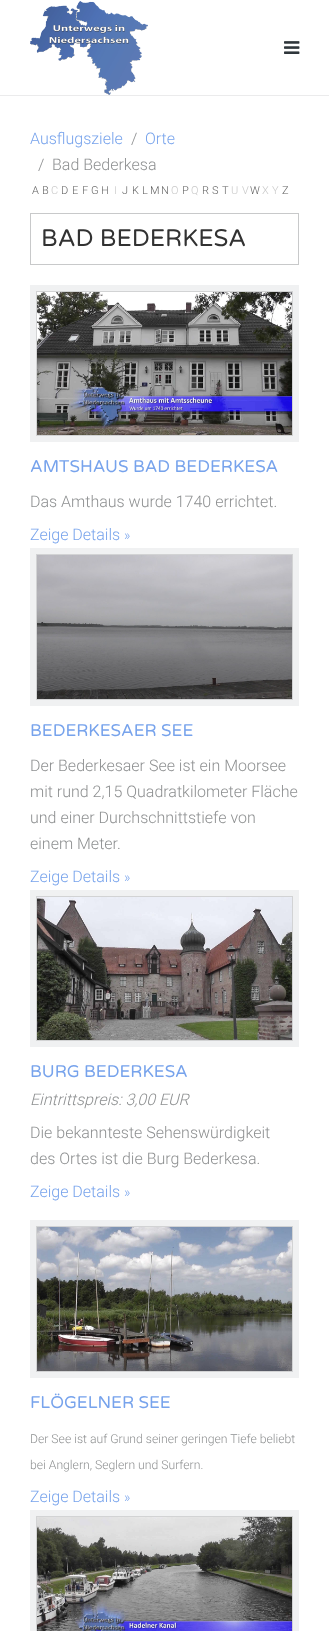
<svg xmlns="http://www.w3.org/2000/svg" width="329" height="1631">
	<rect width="100%" height="100%" fill="#FFFFFF" />
	<image x="30" y="1" width="118" height="94" href="assets/img1.png" />
	<image x="284" y="41" width="16" height="13" href="assets/img2.png" />
	<rect x="0" y="95" width="329" height="1" fill="#EBEBEC" />
	<text x="30" y="144" font-family="Roboto" font-size="16" font-weight="300" fill="#77A3EC">Ausflugsziele</text>
	<text x="131" y="144" font-family="Roboto" font-size="16" font-weight="300" fill="#8E9091">/</text>
	<text x="145" y="144" font-family="Roboto" font-size="16" font-weight="300" fill="#77A3EC">Orte</text>
	<g font-family="Roboto" font-size="16" font-weight="300" fill="#8E9091">
		<text x="38" y="170">/</text>
		<text x="52" y="170">Bad Bederkesa</text>
	</g>
	<g font-family="Roboto" font-size="11" font-weight="300" fill="#646464">
		<text x="32" y="194">A</text>
		<text x="42" y="194">B</text>
	</g>
	<text x="51" y="194" font-family="Roboto" font-size="11" font-weight="300" fill="#C8C8C8">C</text>
	<g font-family="Roboto" font-size="11" font-weight="300" fill="#646464">
		<text x="61" y="194">D</text>
		<text x="72" y="194">E</text>
		<text x="82" y="194">F</text>
		<text x="91" y="194">G</text>
		<text x="101" y="194">H</text>
	</g>
	<text x="114" y="194" font-family="Roboto" font-size="11" font-weight="300" fill="#C8C8C8">I</text>
	<g font-family="Roboto" font-size="11" font-weight="300" fill="#646464">
		<text x="122" y="194">J</text>
		<text x="132" y="194">K</text>
		<text x="142" y="194">L</text>
		<text x="150" y="194">M</text>
		<text x="161" y="194">N</text>
	</g>
	<text x="171" y="194" font-family="Roboto" font-size="11" font-weight="300" fill="#C8C8C8">O</text>
	<text x="182" y="194" font-family="Roboto" font-size="11" font-weight="300" fill="#646464">P</text>
	<text x="191" y="194" font-family="Roboto" font-size="11" font-weight="300" fill="#C8C8C8">Q</text>
	<g font-family="Roboto" font-size="11" font-weight="300" fill="#646464">
		<text x="202" y="194">R</text>
		<text x="212" y="194">S</text>
		<text x="222" y="194">T</text>
	</g>
	<g font-family="Roboto" font-size="11" font-weight="300" fill="#C8C8C8">
		<text x="231" y="194">U</text>
		<text x="242" y="194">V</text>
	</g>
	<text x="250" y="194" font-family="Roboto" font-size="11" font-weight="300" fill="#646464">W</text>
	<g font-family="Roboto" font-size="11" font-weight="300" fill="#C8C8C8">
		<text x="262" y="194">X</text>
		<text x="272" y="194">Y</text>
	</g>
	<text x="282" y="194" font-family="Roboto" font-size="11" font-weight="300" fill="#646464">Z</text>
	<rect x="30.5" y="213.5" width="268" height="51" fill="none" stroke="#C8C9CA" />
	<text x="41" y="246" font-family="Varela Round" font-size="24" fill="#323232">BAD BEDERKESA</text>
	<rect x="33" y="288" width="263" height="151" fill="none" stroke="#F0F1F2" stroke-width="6" />
	<rect x="36.5" y="291.5" width="256" height="144" fill="none" stroke="#D2D3D4" />
	<image x="37" y="292" width="255" height="143" href="assets/img3.png" />
	<text x="30" y="472" font-family="Varela Round" font-size="17" fill="#77A3EC">AMTSHAUS BAD BEDERKESA</text>
	<text x="30" y="507" font-family="Roboto" font-size="16" font-weight="300" fill="#8E9091">Das Amthaus wurde 1740 errichtet.</text>
	<text x="30" y="540" font-family="Roboto" font-size="16" font-weight="300" fill="#77A3EC">Zeige Details</text>
	<text x="124" y="540" font-family="Roboto" font-size="14" font-weight="300" fill="#77A3EC">»</text>
	<rect x="33" y="551" width="263" height="152" fill="none" stroke="#F0F1F2" stroke-width="6" />
	<rect x="36.5" y="554.5" width="256" height="145" fill="none" stroke="#D2D3D4" />
	<image x="37" y="555" width="255" height="144" href="assets/img4.png" />
	<text x="30" y="736" font-family="Varela Round" font-size="17" fill="#77A3EC">BEDERKESAER SEE</text>
	<g font-family="Roboto" font-size="16" font-weight="300" fill="#8E9091">
		<text x="30" y="771">Der Bederkesaer See ist ein Moorsee</text>
		<text x="30" y="797">mit rund 2,15 Quadratkilometer Fläche</text>
		<text x="30" y="823">und einer Durchschnittstiefe von</text>
		<text x="30" y="849">einem Meter.</text>
	</g>
	<text x="30" y="882" font-family="Roboto" font-size="16" font-weight="300" fill="#77A3EC">Zeige Details</text>
	<text x="124" y="882" font-family="Roboto" font-size="14" font-weight="300" fill="#77A3EC">»</text>
	<rect x="33" y="893" width="263" height="151" fill="none" stroke="#F0F1F2" stroke-width="6" />
	<rect x="36.5" y="896.5" width="256" height="144" fill="none" stroke="#D2D3D4" />
	<image x="37" y="897" width="255" height="143" href="assets/img5.png" />
	<text x="30" y="1077" font-family="Varela Round" font-size="17" fill="#77A3EC">BURG BEDERKESA</text>
	<text x="30" y="1105" font-family="Roboto" font-size="16" font-weight="300" font-style="italic" fill="#8E9091">Eintrittspreis: 3,00 EUR</text>
	<g font-family="Roboto" font-size="16" font-weight="300" fill="#8E9091">
		<text x="30" y="1138">Die bekannteste Sehenswürdigkeit</text>
		<text x="30" y="1164">des Ortes ist die Burg Bederkesa.</text>
	</g>
	<text x="30" y="1197" font-family="Roboto" font-size="16" font-weight="300" fill="#77A3EC">Zeige Details</text>
	<text x="124" y="1197" font-family="Roboto" font-size="14" font-weight="300" fill="#77A3EC">»</text>
	<rect x="33" y="1223" width="263" height="152" fill="none" stroke="#F0F1F2" stroke-width="6" />
	<rect x="36.5" y="1226.5" width="256" height="145" fill="none" stroke="#D2D3D4" />
	<image x="37" y="1227" width="255" height="144" href="assets/img6.png" />
	<text x="30" y="1408" font-family="Varela Round" font-size="17" fill="#77A3EC">FLÖGELNER SEE</text>
	<g font-family="Roboto" font-size="12.2" font-weight="300" fill="#8E9091">
		<text x="30" y="1443">Der See ist auf Grund seiner geringen Tiefe beliebt</text>
		<text x="30" y="1469">bei Anglern, Seglern und Surfern.</text>
	</g>
	<text x="30" y="1502" font-family="Roboto" font-size="16" font-weight="300" fill="#77A3EC">Zeige Details</text>
	<text x="124" y="1502" font-family="Roboto" font-size="14" font-weight="300" fill="#77A3EC">»</text>
	<rect x="33" y="1513" width="263" height="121" fill="none" stroke="#F0F1F2" stroke-width="6" />
	<rect x="36.5" y="1516.5" width="256" height="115" fill="none" stroke="#D2D3D4" />
	<image x="37" y="1517" width="255" height="114" href="assets/img7.png" />
</svg>
